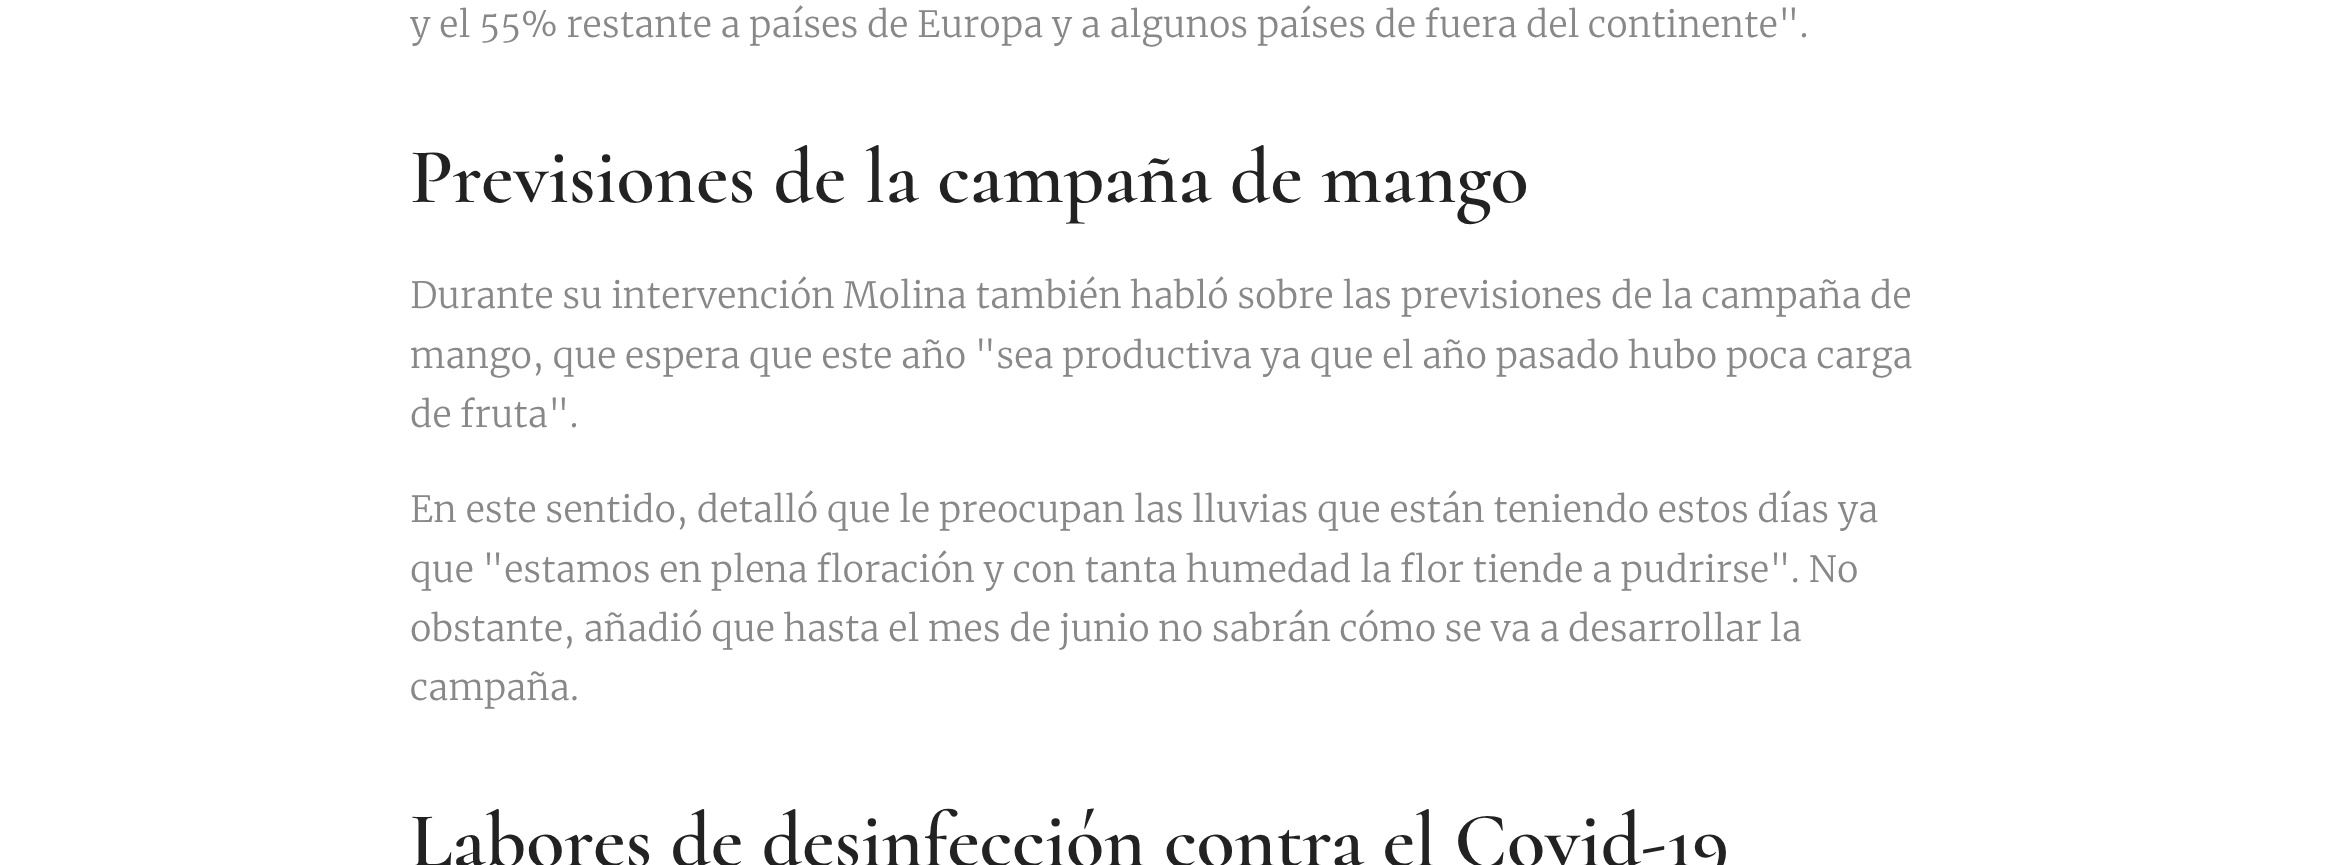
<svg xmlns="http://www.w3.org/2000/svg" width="2326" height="865">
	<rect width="100%" height="100%" fill="#FFFFFF" />
	<text x="410" y="37" font-family="Merriweather" font-size="36" font-weight="300" fill="#888888">y el 55% restante a países de Europa y a algunos países de fuera del continente".</text>
	<text x="410" y="202" font-family="Cormorant" font-size="78.75" font-weight="600" fill="#222222">Previsiones de la campaña de mango</text>
	<g font-family="Merriweather" font-size="36" font-weight="300" fill="#888888">
		<text x="410" y="308">Durante su intervención Molina también habló sobre las previsiones de la campaña de</text>
		<text x="410" y="368">mango, que espera que este año "sea productiva ya que el año pasado hubo poca carga</text>
		<text x="410" y="427">de fruta".</text>
		<text x="410" y="522">En este sentido, detalló que le preocupan las lluvias que están teniendo estos días ya</text>
		<text x="410" y="582">que "estamos en plena floración y con tanta humedad la flor tiende a pudrirse". No</text>
		<text x="410" y="641">obstante, añadió que hasta el mes de junio no sabrán cómo se va a desarrollar la</text>
		<text x="410" y="700">campaña.</text>
	</g>
	<text x="410" y="866" font-family="Cormorant" font-size="78.75" font-weight="600" fill="#222222">Labores de desinfección contra el Covid-19</text>
</svg>
